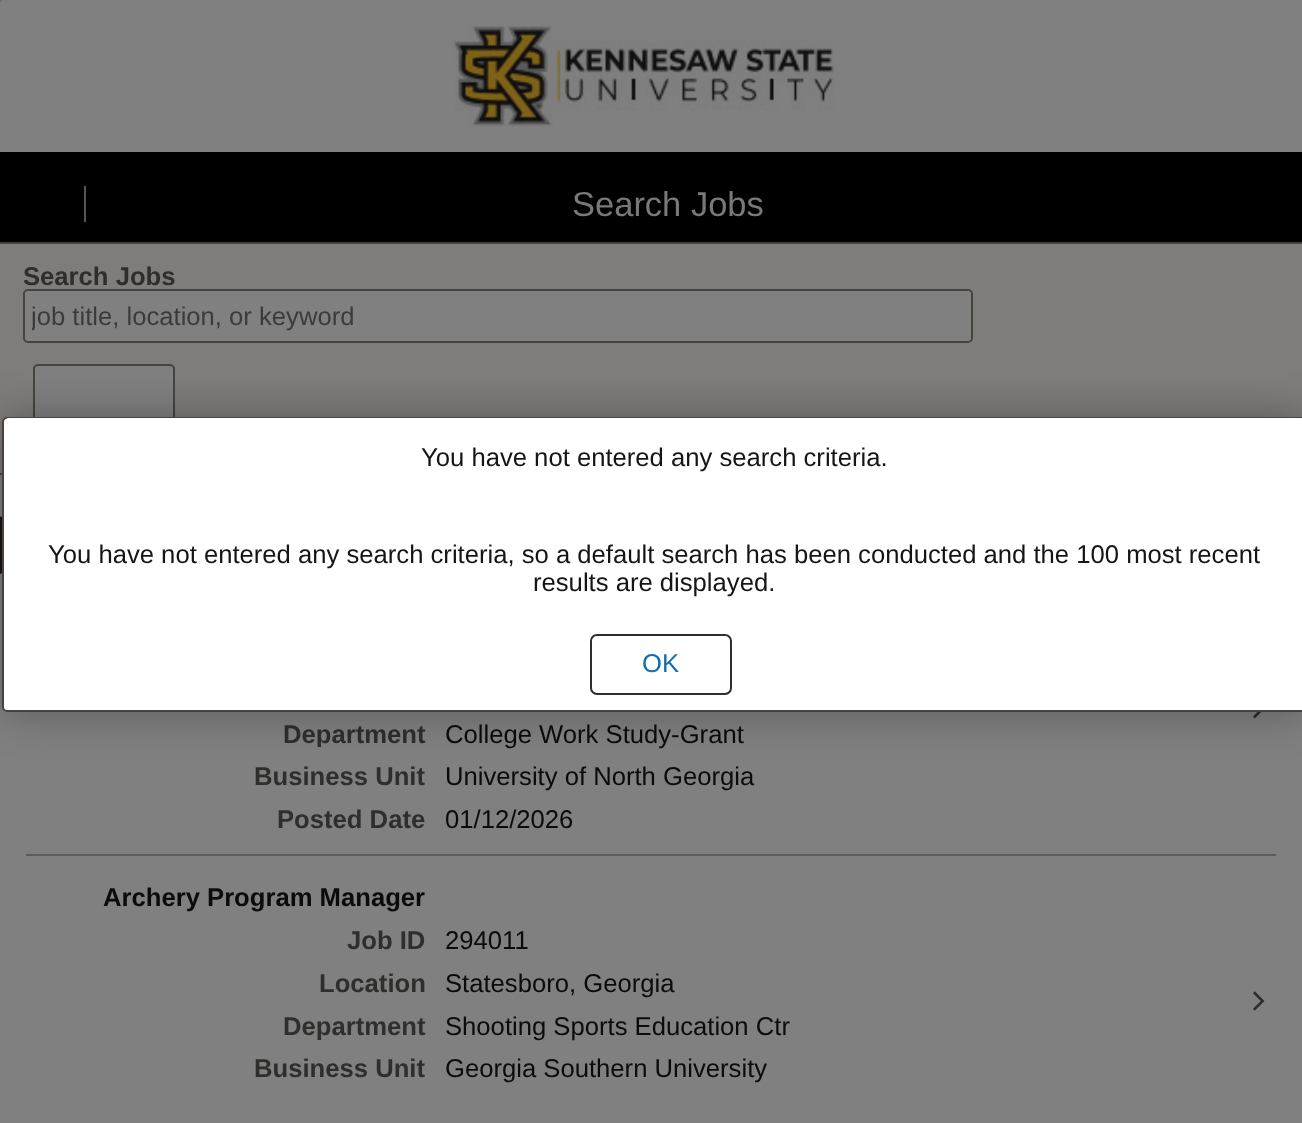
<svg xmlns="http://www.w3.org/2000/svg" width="1302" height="1123">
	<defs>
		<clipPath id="clip1"><rect x="32" y="303" width="932" height="28" /></clipPath>
		<clipPath id="clip2"><rect x="51" y="719" width="394" height="28" /></clipPath>
		<clipPath id="clip3"><rect x="51" y="1012" width="394" height="28" /></clipPath>
	</defs>
	<rect width="100%" height="100%" fill="#808080" />
	<image x="452" y="26" width="382" height="101" href="assets/img1.png" />
	<rect x="0" y="152" width="1302" height="90" fill="#000000" />
	<rect x="0" y="242" width="1302" height="2" fill="#464340" />
	<rect x="84" y="186" width="2" height="36" fill="#575451" />
	<text x="572" y="216" font-family="Liberation Sans" font-size="34.5" fill="#797979">Search Jobs</text>
	<path d="M-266 502H-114C-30 502 38 521 38 545C38 569-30 588-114 588H-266Z" fill="#191715" />
	<path d="M-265 503H-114C-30 503 37.5 522 37.5 545C37.5 568.5-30 587-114 587H-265Z" fill="none" stroke="#191715" stroke-width="1.8" />
	<rect x="0" y="244" width="1302" height="229" fill="#7E7D7C" />
	<rect x="0" y="473" width="2" height="2" fill="#464340" />
	<text x="23" y="285" font-family="Liberation Sans" font-size="25.65" font-weight="700" fill="#2E2E2D">Search Jobs</text>
	<rect x="24" y="290" width="948" height="52" rx="4" fill="#808080" stroke="#464340" stroke-width="2" />
	<g clip-path="url(#clip1)">
		<text x="31" y="325" font-family="Liberation Sans" font-size="25.65" fill="#3B3B3B">job title, location, or keyword</text>
	</g>
	<rect x="34" y="365" width="140" height="56" rx="4" fill="#808080" stroke="#464340" stroke-width="2" />
	<rect x="26" y="854" width="1250" height="2" fill="#5E5B59" />
	<image x="1253" y="712" width="9" height="7" href="assets/img2.png" />
	<g clip-path="url(#clip2)">
		<text x="283" y="743" font-family="Liberation Sans" font-size="25.65" font-weight="700" fill="#2E2E2D">Department</text>
	</g>
	<text x="445" y="743" font-family="Liberation Sans" font-size="25.65" fill="#0B0B0A">College Work Study-Grant</text>
	<text x="254" y="785" font-family="Liberation Sans" font-size="25.65" font-weight="700" fill="#2E2E2D">Business Unit</text>
	<text x="445" y="785" font-family="Liberation Sans" font-size="25.65" fill="#0B0B0A">University of North Georgia</text>
	<text x="277" y="828" font-family="Liberation Sans" font-size="25.65" font-weight="700" fill="#2E2E2D">Posted Date</text>
	<text x="445" y="828" font-family="Liberation Sans" font-size="25.65" fill="#0B0B0A">01/12/2026</text>
	<text x="103" y="906" font-family="Liberation Sans" font-size="25.65" font-weight="700" fill="#0B0B0A">Archery Program Manager</text>
	<text x="347" y="949" font-family="Liberation Sans" font-size="25.65" font-weight="700" fill="#2E2E2D">Job ID</text>
	<text x="445" y="949" font-family="Liberation Sans" font-size="25.65" fill="#0B0B0A">294011</text>
	<text x="319" y="992" font-family="Liberation Sans" font-size="25.65" font-weight="700" fill="#2E2E2D">Location</text>
	<text x="445" y="992" font-family="Liberation Sans" font-size="25.65" fill="#0B0B0A">Statesboro, Georgia</text>
	<image x="1253" y="991" width="12" height="20" href="assets/img3.png" />
	<g clip-path="url(#clip3)">
		<text x="283" y="1035" font-family="Liberation Sans" font-size="25.65" font-weight="700" fill="#2E2E2D">Department</text>
	</g>
	<text x="445" y="1035" font-family="Liberation Sans" font-size="25.65" fill="#0B0B0A">Shooting Sports Education Ctr</text>
	<text x="254" y="1077" font-family="Liberation Sans" font-size="25.65" font-weight="700" fill="#2E2E2D">Business Unit</text>
	<text x="445" y="1077" font-family="Liberation Sans" font-size="25.65" fill="#0B0B0A">Georgia Southern University</text>
	<rect x="0" y="0" width="2" height="2" fill="#687561" />
	<rect x="2" y="417" width="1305" height="295" rx="5" fill="#000000" fill-opacity="0.3" filter="blur(22px)" />
	<rect x="3" y="418" width="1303" height="293" rx="4" fill="#FFFFFF" stroke="#47423E" stroke-width="2" />
	<rect x="4" y="418" width="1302" height="289" rx="5" fill="#FFFFFF" />
	<g font-family="Liberation Sans" font-size="25.65" fill="#161513">
		<text x="421" y="466">You have not entered any search criteria.</text>
		<text x="48" y="563">You have not entered any search criteria, so a default search has been conducted and the 100 most recent</text>
		<text x="533" y="591">results are displayed.</text>
	</g>
	<rect x="591" y="635" width="140" height="59" rx="6" fill="none" stroke="#312D2A" stroke-width="2" />
	<text x="642" y="672" font-family="Liberation Sans" font-size="25.65" fill="#116EB1">OK</text>
</svg>
